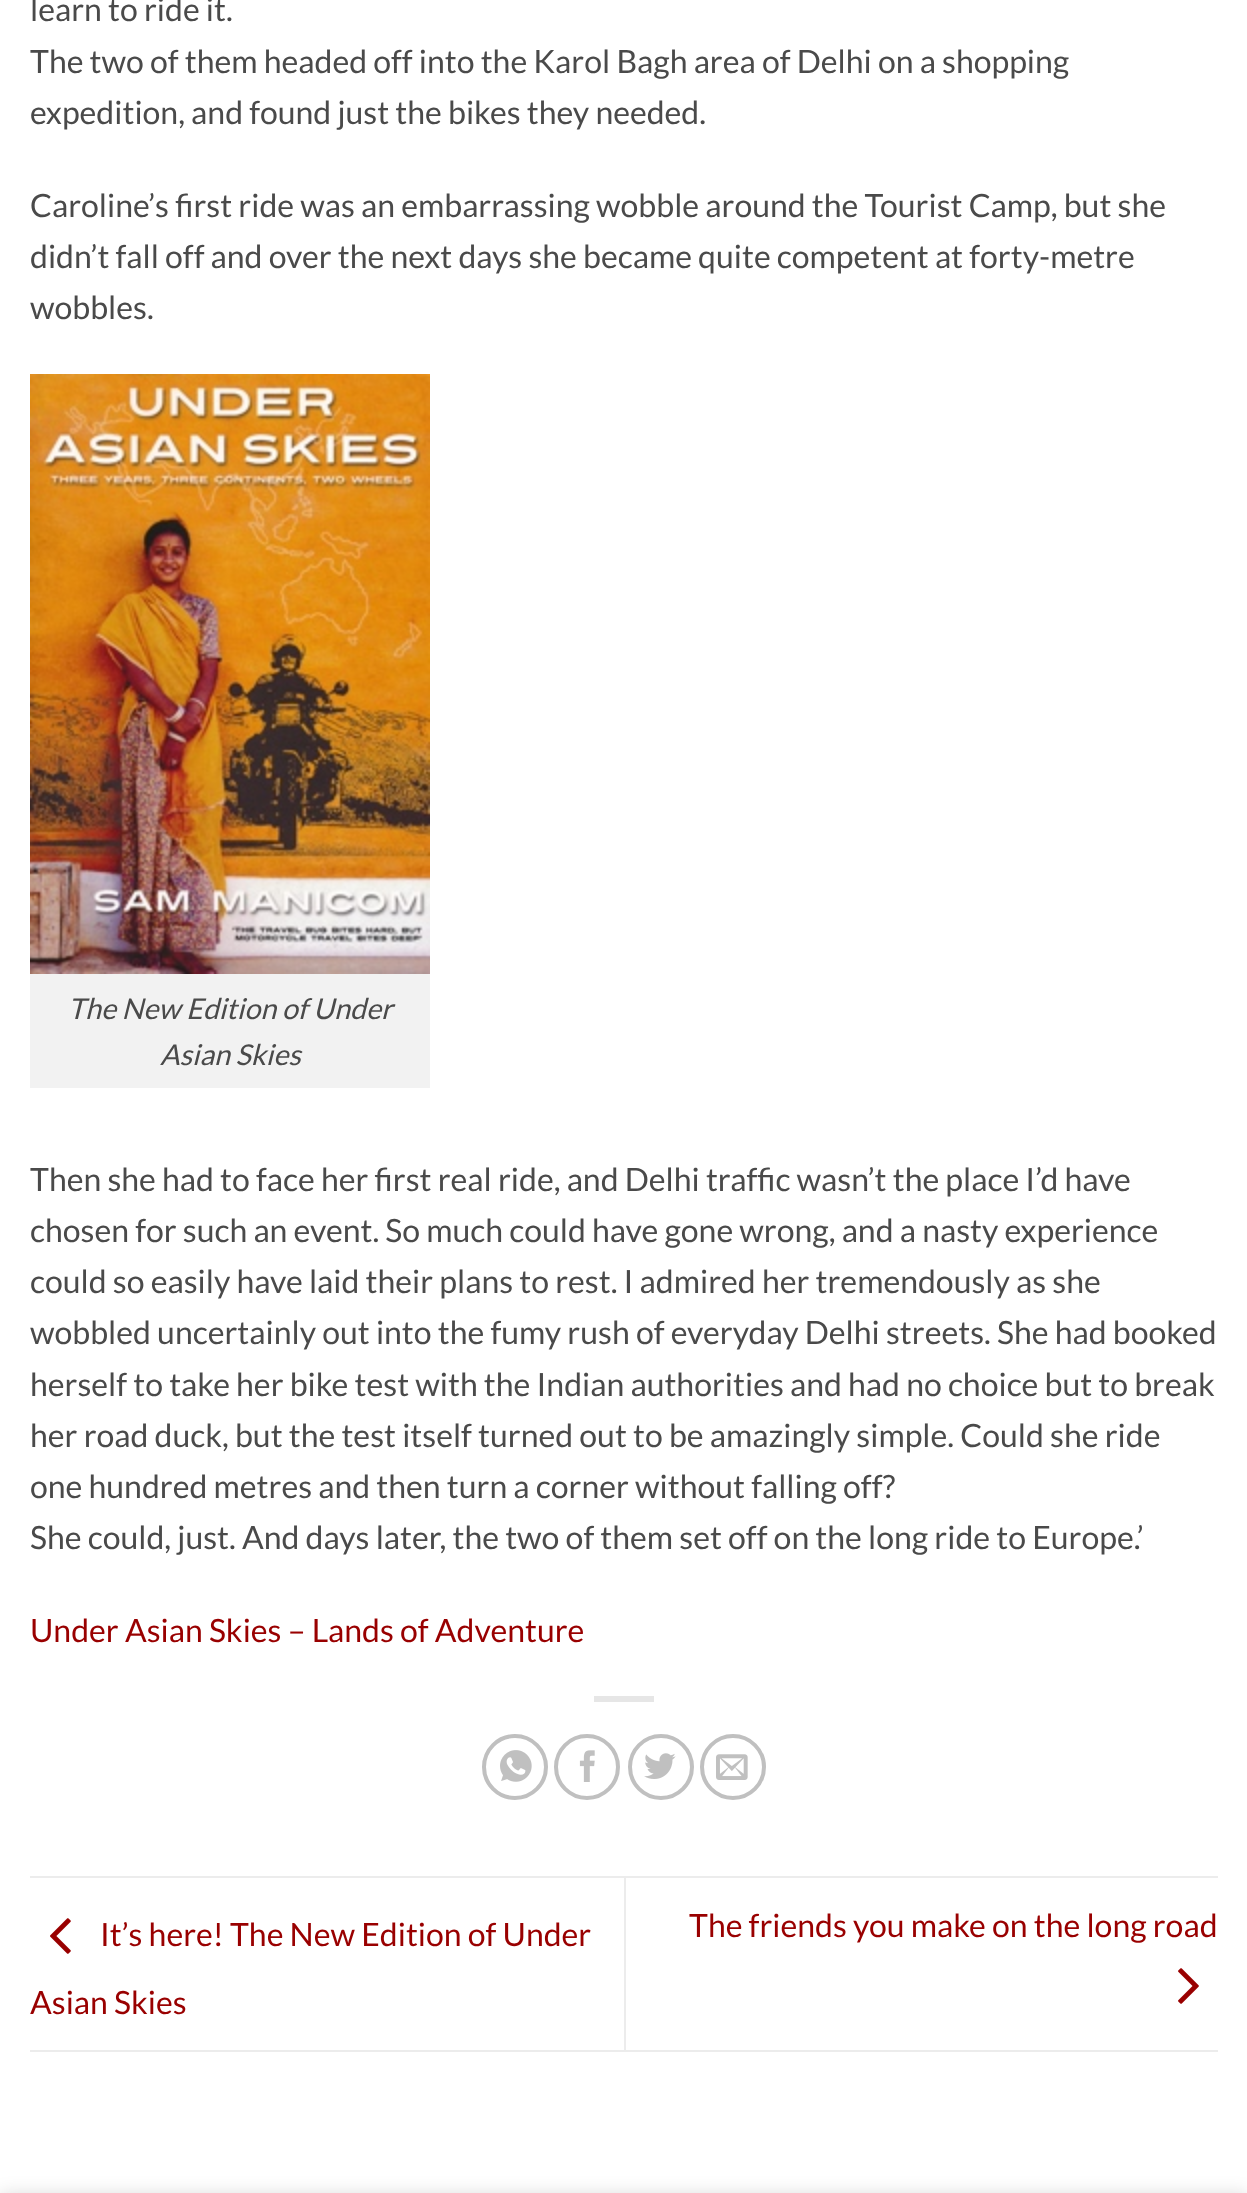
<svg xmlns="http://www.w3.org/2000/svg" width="1247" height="2193">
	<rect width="100%" height="100%" fill="#FFFFFF" />
	<g font-family="Lato" font-size="32" fill="#4A4A4A">
		<text x="30" y="21">learn to ride it.</text>
		<text x="30" y="73">The two of them headed off into the Karol Bagh area of Delhi on a shopping</text>
		<text x="30" y="124">expedition, and found just the bikes they needed.</text>
		<text x="30" y="217">Caroline’s first ride was an embarrassing wobble around the Tourist Camp, but she</text>
		<text x="30" y="268">didn’t fall off and over the next days she became quite competent at forty-metre</text>
		<text x="30" y="319">wobbles.</text>
	</g>
	<image x="30" y="374" width="400" height="600" href="assets/img1.png" />
	<rect x="30" y="974" width="400" height="114" fill="#F2F2F2" />
	<g font-family="Lato" font-size="28.75" font-style="italic" fill="#4A4A4A">
		<text x="68" y="1019">The New Edition of Under</text>
		<text x="160" y="1065">Asian Skies</text>
	</g>
	<g font-family="Lato" font-size="32" fill="#4A4A4A">
		<text x="30" y="1191">Then she had to face her first real ride, and Delhi traffic wasn’t the place I’d have</text>
		<text x="30" y="1242">chosen for such an event. So much could have gone wrong, and a nasty experience</text>
		<text x="30" y="1293">could so easily have laid their plans to rest. I admired her tremendously as she</text>
		<text x="30" y="1344">wobbled uncertainly out into the fumy rush of everyday Delhi streets. She had booked</text>
		<text x="30" y="1396">herself to take her bike test with the Indian authorities and had no choice but to break</text>
		<text x="30" y="1447">her road duck, but the test itself turned out to be amazingly simple. Could she ride</text>
		<text x="30" y="1498">one hundred metres and then turn a corner without falling off?</text>
		<text x="30" y="1549">She could, just. And days later, the two of them set off on the long ride to Europe.’</text>
	</g>
	<text x="30" y="1642" font-family="Lato" font-size="32" fill="#990000">Under Asian Skies – Lands of Adventure</text>
	<rect x="594" y="1696" width="60" height="6" fill="#E6E6E6" />
	<circle cx="515" cy="1767" r="31" fill="none" stroke="#C0C0C0" stroke-width="4" />
	<image x="500" y="1750" width="32" height="32" href="assets/img2.png" />
	<circle cx="587" cy="1767" r="31" fill="none" stroke="#C0C0C0" stroke-width="4" />
	<image x="579" y="1750" width="16" height="32" href="assets/img3.png" />
	<circle cx="661" cy="1767" r="31" fill="none" stroke="#C0C0C0" stroke-width="4" />
	<image x="644" y="1753" width="32" height="26" href="assets/img4.png" />
	<circle cx="733" cy="1767" r="31" fill="none" stroke="#C0C0C0" stroke-width="4" />
	<image x="716" y="1754" width="32" height="26" href="assets/img5.png" />
	<rect x="30" y="1876" width="1188" height="2" fill="#ECECEC" />
	<rect x="30" y="2050" width="1188" height="2" fill="#ECECEC" />
	<image x="50" y="1918" width="21" height="36" href="assets/img6.png" />
	<g font-family="Lato" font-size="32" fill="#990000">
		<text x="100" y="1946">It’s here! The New Edition of Under</text>
		<text x="30" y="2014">Asian Skies</text>
	</g>
	<rect x="624" y="1878" width="2" height="172" fill="#ECECEC" />
	<text x="689" y="1937" font-family="Lato" font-size="32" fill="#990000">The friends you make on the long road</text>
	<image x="1178" y="1968" width="21" height="36" href="assets/img7.png" />
	<rect x="0" y="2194" width="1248" height="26" fill="#000000" fill-opacity="0.14" filter="blur(9px)" />
</svg>
